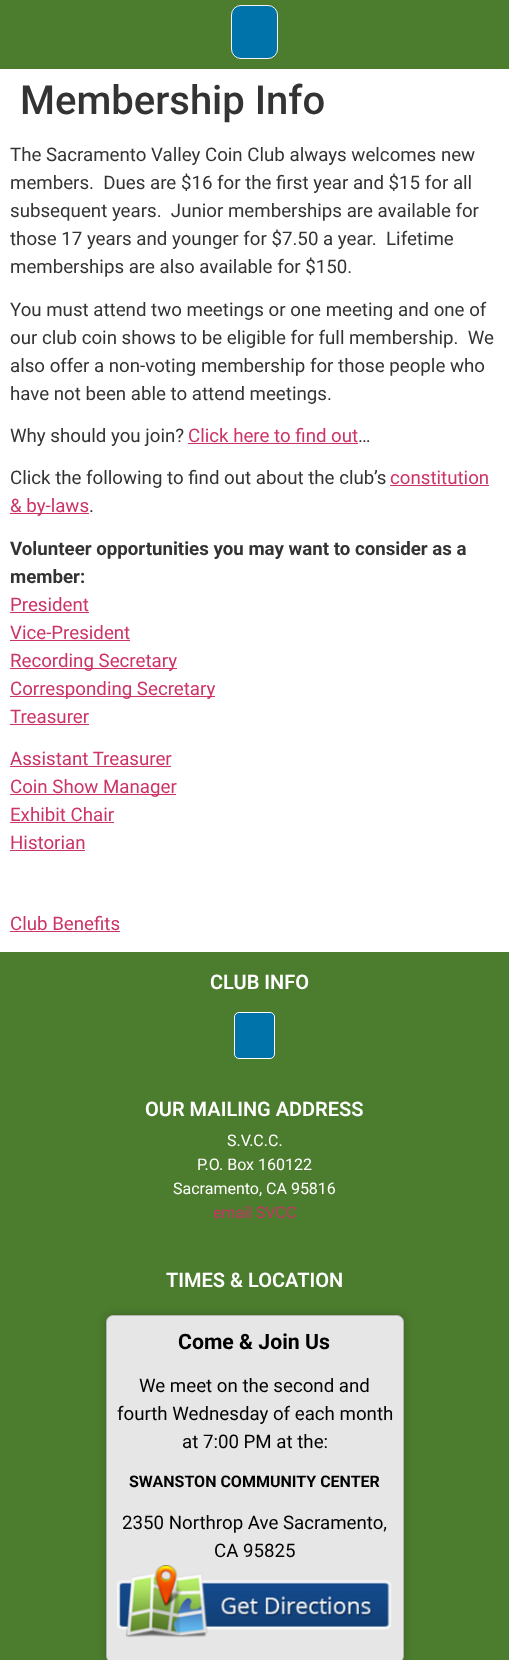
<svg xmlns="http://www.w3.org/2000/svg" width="509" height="1660">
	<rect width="100%" height="100%" fill="#FFFFFF" />
	<rect x="0" y="0" width="509" height="69" fill="#4C7C2E" />
	<rect x="231.5" y="5.5" width="46" height="53" rx="9.5" fill="#0073AA" stroke="#F4F4F4" />
	<text x="20" y="114" font-family="Roboto" font-size="40" font-weight="500" fill="#333333">Membership Info</text>
	<g font-family="Roboto" font-size="18.7" fill="#333333">
		<text x="10" y="161">The Sacramento Valley Coin Club always welcomes new</text>
		<text x="10" y="189" xml:space="preserve">members.  Dues are $16 for the first year and $15 for all</text>
		<text x="10" y="217" xml:space="preserve">subsequent years.  Junior memberships are available for</text>
		<text x="10" y="245" xml:space="preserve">those 17 years and younger for $7.50 a year.  Lifetime</text>
		<text x="10" y="273">memberships are also available for $150.</text>
		<text x="10" y="316">You must attend two meetings or one meeting and one of</text>
		<text x="10" y="344" xml:space="preserve">our club coin shows to be eligible for full membership.  We</text>
		<text x="10" y="372">also offer a non-voting membership for those people who</text>
		<text x="10" y="400">have not been able to attend meetings.</text>
		<text x="10" y="442">Why should you join?</text>
	</g>
	<text x="188" y="442" font-family="Roboto" font-size="18.7" fill="#CC3366">Click here to find out</text>
	<text x="358" y="442" font-family="Roboto" font-size="18.7" fill="#333333">…</text>
	<rect x="188" y="443" width="170" height="1" fill="#CC3366" />
	<text x="10" y="484" font-family="Roboto" font-size="18.7" fill="#333333">Click the following to find out about the club’s</text>
	<text x="390" y="484" font-family="Roboto" font-size="18.7" fill="#CC3366">constitution</text>
	<rect x="390" y="485" width="99" height="1" fill="#CC3366" />
	<rect x="10" y="513" width="79" height="1" fill="#CC3366" />
	<text x="10" y="512" font-family="Roboto" font-size="18.7" fill="#CC3366">&amp; by-laws</text>
	<text x="89" y="512" font-family="Roboto" font-size="18.7" fill="#333333">.</text>
	<g font-family="Roboto" font-size="18.7" font-weight="700" fill="#333333">
		<text x="10" y="555">Volunteer opportunities you may want to consider as a</text>
		<text x="10" y="583">member:</text>
	</g>
	<text x="10" y="611" font-family="Roboto" font-size="18.7" fill="#CC3366">President</text>
	<rect x="10" y="612" width="79" height="1" fill="#CC3366" />
	<text x="10" y="639" font-family="Roboto" font-size="18.7" fill="#CC3366">Vice-President</text>
	<rect x="10" y="640" width="120" height="1" fill="#CC3366" />
	<rect x="10" y="668" width="167" height="1" fill="#CC3366" />
	<text x="10" y="667" font-family="Roboto" font-size="18.7" fill="#CC3366">Recording Secretary</text>
	<rect x="10" y="696" width="205" height="1" fill="#CC3366" />
	<g font-family="Roboto" font-size="18.7" fill="#CC3366">
		<text x="10" y="695">Corresponding Secretary</text>
		<text x="10" y="723">Treasurer</text>
	</g>
	<rect x="10" y="724" width="79" height="1" fill="#CC3366" />
	<text x="10" y="765" font-family="Roboto" font-size="18.7" fill="#CC3366">Assistant Treasurer</text>
	<rect x="10" y="766" width="161" height="1" fill="#CC3366" />
	<rect x="10" y="794" width="166" height="1" fill="#CC3366" />
	<g font-family="Roboto" font-size="18.7" fill="#CC3366">
		<text x="10" y="793">Coin Show Manager</text>
		<text x="10" y="821">Exhibit Chair</text>
	</g>
	<rect x="10" y="822" width="104" height="1" fill="#CC3366" />
	<text x="10" y="849" font-family="Roboto" font-size="18.7" fill="#CC3366">Historian</text>
	<rect x="10" y="850" width="75" height="1" fill="#CC3366" />
	<text x="10" y="930" font-family="Roboto" font-size="18.7" fill="#CC3366">Club Benefits</text>
	<rect x="10" y="931" width="110" height="1" fill="#CC3366" />
	<rect x="0" y="952" width="509" height="708" fill="#4C7C2E" />
	<text x="210" y="989" font-family="Roboto" font-size="20" font-weight="600" fill="#FFFFFF">CLUB INFO</text>
	<rect x="234.5" y="1012.5" width="40" height="46" rx="4.5" fill="#0073AA" stroke="#FFFFFF" />
	<text x="145" y="1116" font-family="Roboto" font-size="20" font-weight="600" fill="#FFFFFF">OUR MAILING ADDRESS</text>
	<g font-family="Roboto" font-size="16" fill="#FFFFFF">
		<text x="227" y="1146">S.V.C.C.</text>
		<text x="197" y="1170">P.O. Box 160122</text>
		<text x="173" y="1194">Sacramento, CA 95816</text>
	</g>
	<text x="213" y="1218" font-family="Roboto" font-size="16" fill="#CC3366">email SVCC</text>
	<text x="166" y="1287" font-family="Roboto" font-size="20" font-weight="600" fill="#FFFFFF">TIMES &amp; LOCATION</text>
	<rect x="106" y="1315" width="298" height="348" rx="7" fill="#000000" fill-opacity="0.2" filter="blur(4px)" />
	<rect x="106.5" y="1315.5" width="297" height="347" rx="6.5" fill="#E6E6E6" stroke="#B3B3B3" />
	<text x="178" y="1349" font-family="Roboto" font-size="21.25" font-weight="700" fill="#000000">Come &amp; Join Us</text>
	<g font-family="Roboto" font-size="18.7" fill="#000000">
		<text x="139" y="1392">We meet on the second and</text>
		<text x="117" y="1420">fourth Wednesday of each month</text>
		<text x="182" y="1448">at 7:00 PM at the:</text>
	</g>
	<text x="129" y="1487" font-family="Roboto" font-size="16" font-weight="700" fill="#000000">SWANSTON COMMUNITY CENTER</text>
	<g font-family="Roboto" font-size="18.7" fill="#000000">
		<text x="122" y="1529">2350 Northrop Ave Sacramento,</text>
		<text x="214" y="1557">CA 95825</text>
	</g>
	<image x="117" y="1565" width="275" height="73" href="assets/img1.png" />
</svg>
